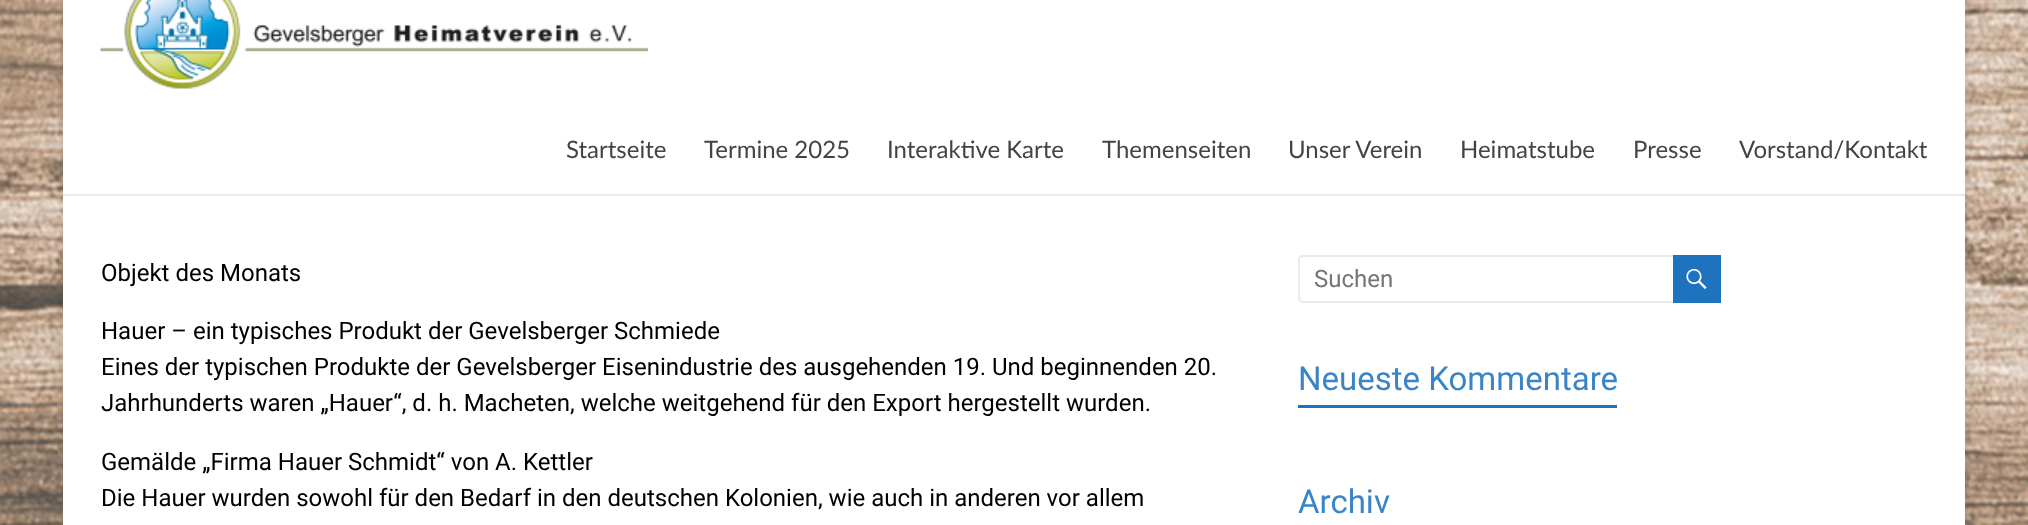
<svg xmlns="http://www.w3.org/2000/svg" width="2028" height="525">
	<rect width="100%" height="100%" fill="#FFFFFF" />
	<image x="0" y="0" width="2028" height="525" href="assets/img1.png" />
	<rect x="63" y="-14" width="1902" height="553" fill="#646464" fill-opacity="0.3" filter="blur(4.5px)" />
	<rect x="63" y="0" width="1902" height="525" fill="#FFFFFF" />
	<rect x="63" y="194" width="1902" height="2" fill="#EAEAEA" />
	<image x="100" y="0" width="548" height="89" href="assets/img2.png" />
	<g font-family="Lato" font-size="24" fill="#444444">
		<text x="566" y="158">Startseite</text>
		<text x="704" y="158">Termine 2025</text>
		<text x="887" y="158">Interaktive Karte</text>
		<text x="1102" y="158">Themenseiten</text>
		<text x="1288" y="158">Unser Verein</text>
		<text x="1460" y="158">Heimatstube</text>
		<text x="1633" y="158">Presse</text>
		<text x="1739" y="158">Vorstand/Kontakt</text>
	</g>
	<g font-family="Roboto" font-size="24" fill="#000000">
		<text x="101" y="281">Objekt des Monats</text>
		<text x="101" y="339">Hauer – ein typisches Produkt der Gevelsberger Schmiede</text>
		<text x="101" y="375">Eines der typischen Produkte der Gevelsberger Eisenindustrie des ausgehenden 19. Und beginnenden 20.</text>
		<text x="101" y="411">Jahrhunderts waren „Hauer“, d. h. Macheten, welche weitgehend für den Export hergestellt wurden.</text>
		<text x="101" y="470">Gemälde „Firma Hauer Schmidt“ von A. Kettler</text>
		<text x="101" y="506">Die Hauer wurden sowohl für den Bedarf in den deutschen Kolonien, wie auch in anderen vor allem</text>
	</g>
	<rect x="1299" y="256" width="376" height="46" rx="4" fill="none" stroke="#EAEAEA" stroke-width="2" />
	<text x="1314" y="287" font-family="Roboto" font-size="24" fill="#757575">Suchen</text>
	<rect x="1673" y="255" width="48" height="48" fill="#1E73BE" />
	<image x="1686" y="268" width="21" height="21" href="assets/img3.png" />
	<text x="1298" y="390" font-family="Roboto" font-size="33" fill="#3B85C7">Neueste Kommentare</text>
	<rect x="1298" y="405" width="319" height="3" fill="#1E73BE" />
	<text x="1298" y="513" font-family="Roboto" font-size="33" fill="#3B85C7">Archiv</text>
</svg>
